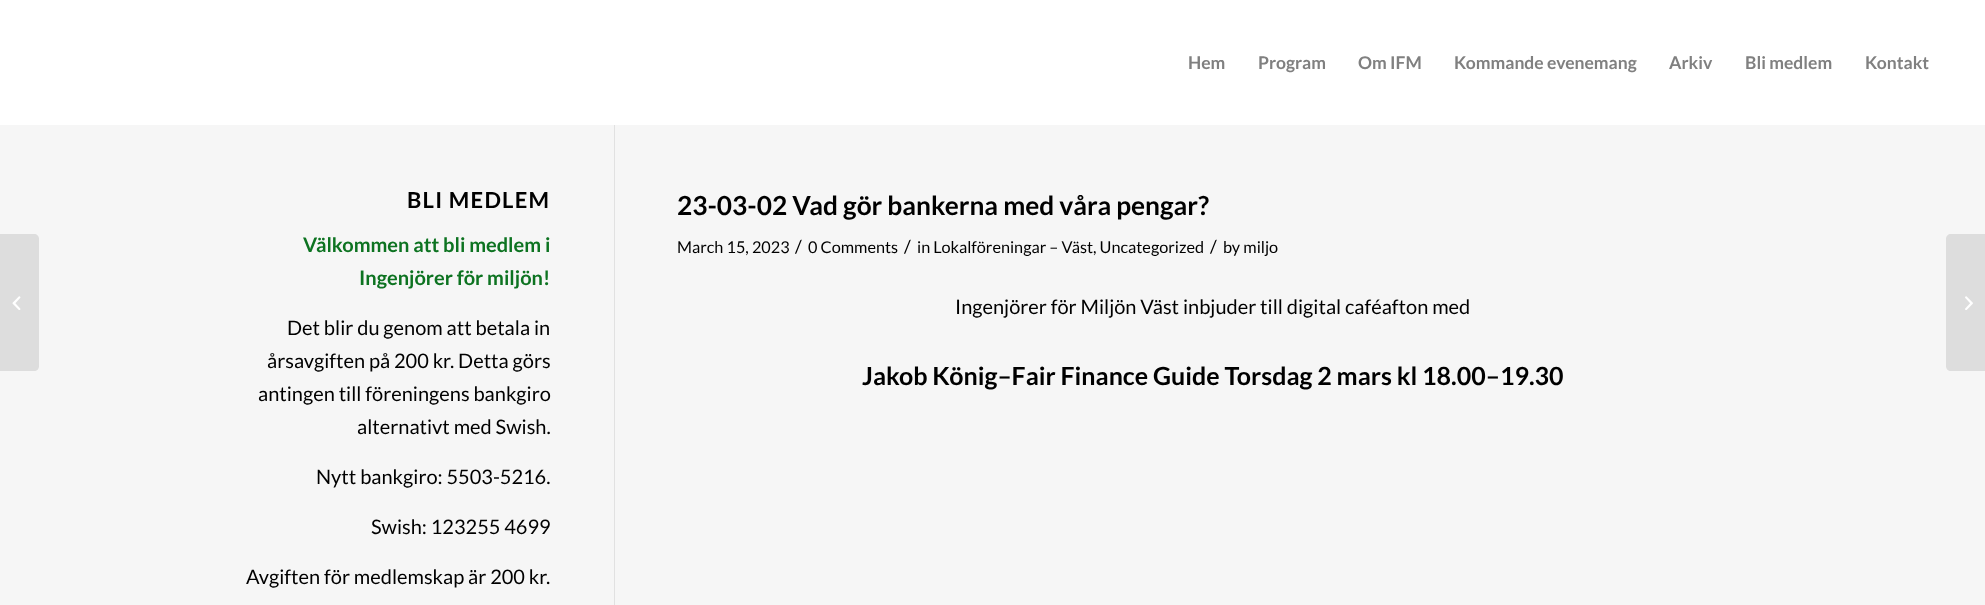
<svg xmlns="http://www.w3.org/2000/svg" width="1985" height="605">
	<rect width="100%" height="100%" fill="#F6F6F6" />
	<rect x="0" y="0" width="1985" height="125" fill="#FFFFFF" />
	<g font-family="Lato" font-size="17.5" font-weight="700" fill="#808080">
		<text x="1188" y="69">Hem</text>
		<text x="1258" y="69">Program</text>
		<text x="1358" y="69">Om IFM</text>
		<text x="1454" y="69">Kommande evenemang</text>
		<text x="1669" y="69">Arkiv</text>
		<text x="1745" y="69">Bli medlem</text>
		<text x="1865" y="69">Kontakt</text>
	</g>
	<path d="M0 234H34C37 234 39 236 39 239V366C39 369 37 371 34 371H0Z" fill="#DDDDDD" />
	<image x="12" y="296" width="9" height="14" href="assets/img1.png" />
	<text x="407" y="208" font-family="Lato" font-size="22" font-weight="700" letter-spacing="1.25" fill="#000000">BLI MEDLEM</text>
	<g font-family="Lato" font-size="20" font-weight="700" fill="#0D7321">
		<text x="303" y="252">Välkommen att bli medlem i</text>
		<text x="359" y="285">Ingenjörer för miljön!</text>
	</g>
	<g font-family="Lato" font-size="20" fill="#000000">
		<text x="287" y="335">Det blir du genom att betala in</text>
		<text x="267" y="368">årsavgiften på 200 kr</text>
		<text x="450" y="368">. Detta görs</text>
		<text x="258" y="401">antingen till föreningens bankgiro</text>
		<text x="357" y="434">alternativt med Swish.</text>
		<text x="316" y="484">Nytt bankgiro: 5503-5216.</text>
		<text x="371" y="534">Swish: 123255 4699</text>
		<text x="246" y="584">Avgiften för medlemskap är 200 kr</text>
		<text x="546" y="584">.</text>
	</g>
	<rect x="614" y="125" width="1" height="480" fill="#E1E1E1" />
	<text x="677" y="215" font-family="Lato" font-size="26.25" font-weight="700" fill="#000000">23-03-02 Vad gör bankerna med våra pengar?</text>
	<text x="677" y="253" font-family="Lato" font-size="16.25" fill="#000000">March 15, 2023</text>
	<text x="795" y="253" font-family="Lato" font-size="18" fill="#000000">/</text>
	<text x="808" y="253" font-family="Lato" font-size="16.25" fill="#000000">0 Comments</text>
	<text x="904" y="253" font-family="Lato" font-size="18" fill="#000000">/</text>
	<text x="917" y="253" font-family="Lato" font-size="16.25" fill="#000000">in Lokalföreningar – Väst, Uncategorized</text>
	<text x="1210" y="253" font-family="Lato" font-size="18" fill="#000000">/</text>
	<text x="1223" y="253" font-family="Lato" font-size="16.25" fill="#000000">by miljo</text>
	<text x="955" y="314" font-family="Lato" font-size="20" fill="#000000">Ingenjörer för Miljön Väst inbjuder till digital caféafton med</text>
	<text x="862" y="385" font-family="Lato" font-size="25" font-weight="700" fill="#000000">Jakob König–Fair Finance Guide Torsdag 2 mars kl 18.00–19.30</text>
	<path d="M1951 234H1985V371H1951C1948 371 1946 369 1946 366V239C1946 236 1948 234 1951 234Z" fill="#DDDDDD" />
	<image x="1965" y="296" width="8" height="14" href="assets/img2.png" />
</svg>
